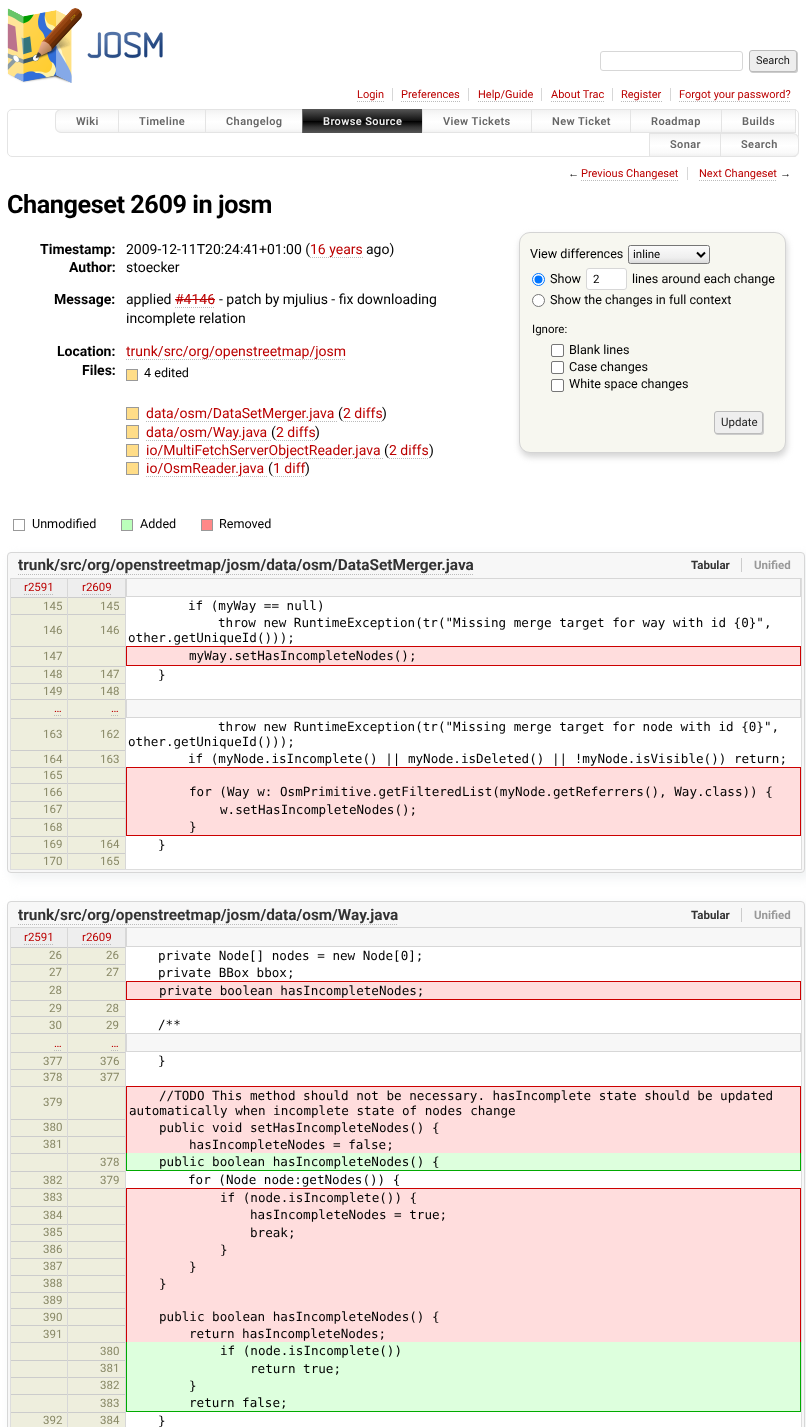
<svg xmlns="http://www.w3.org/2000/svg" width="806" height="1427">
	<defs>
		<clipPath id="clip1"><path d="M61 109H119V133H61C57.5 133 55 130.5 55 127V115C55 111.5 57.5 109 61 109Z" /></clipPath>
		<linearGradient id="g1" gradientUnits="userSpaceOnUse" x1="87" y1="110" x2="87" y2="132"><stop offset="0" stop-color="#F2F2F2" /><stop offset="0.25" stop-color="#FAFAFA" /><stop offset="0.49" stop-color="#FEFEFE" /><stop offset="0.51" stop-color="#FFFFFF" /><stop offset="0.85" stop-color="#FAFAFA" /><stop offset="1" stop-color="#F2F2F2" /></linearGradient>
		<linearGradient id="g2" gradientUnits="userSpaceOnUse" x1="162" y1="110" x2="162" y2="132"><stop offset="0" stop-color="#F2F2F2" /><stop offset="0.25" stop-color="#FAFAFA" /><stop offset="0.49" stop-color="#FEFEFE" /><stop offset="0.51" stop-color="#FFFFFF" /><stop offset="0.85" stop-color="#FAFAFA" /><stop offset="1" stop-color="#F2F2F2" /></linearGradient>
		<linearGradient id="g3" gradientUnits="userSpaceOnUse" x1="255" y1="110" x2="255" y2="132"><stop offset="0" stop-color="#F2F2F2" /><stop offset="0.25" stop-color="#FAFAFA" /><stop offset="0.49" stop-color="#FEFEFE" /><stop offset="0.51" stop-color="#FFFFFF" /><stop offset="0.85" stop-color="#FAFAFA" /><stop offset="1" stop-color="#F2F2F2" /></linearGradient>
		<linearGradient id="g4" gradientUnits="userSpaceOnUse" x1="363" y1="109" x2="363" y2="133"><stop offset="0" stop-color="#555555" /><stop offset="0.25" stop-color="#333333" /><stop offset="0.49" stop-color="#111111" /><stop offset="0.51" stop-color="#000000" /><stop offset="0.75" stop-color="#333333" /><stop offset="1" stop-color="#555555" /></linearGradient>
		<linearGradient id="g5" gradientUnits="userSpaceOnUse" x1="477" y1="110" x2="477" y2="132"><stop offset="0" stop-color="#F2F2F2" /><stop offset="0.25" stop-color="#FAFAFA" /><stop offset="0.49" stop-color="#FEFEFE" /><stop offset="0.51" stop-color="#FFFFFF" /><stop offset="0.85" stop-color="#FAFAFA" /><stop offset="1" stop-color="#F2F2F2" /></linearGradient>
		<linearGradient id="g6" gradientUnits="userSpaceOnUse" x1="581" y1="110" x2="581" y2="132"><stop offset="0" stop-color="#F2F2F2" /><stop offset="0.25" stop-color="#FAFAFA" /><stop offset="0.49" stop-color="#FEFEFE" /><stop offset="0.51" stop-color="#FFFFFF" /><stop offset="0.85" stop-color="#FAFAFA" /><stop offset="1" stop-color="#F2F2F2" /></linearGradient>
		<linearGradient id="g7" gradientUnits="userSpaceOnUse" x1="676" y1="110" x2="676" y2="132"><stop offset="0" stop-color="#F2F2F2" /><stop offset="0.25" stop-color="#FAFAFA" /><stop offset="0.49" stop-color="#FEFEFE" /><stop offset="0.51" stop-color="#FFFFFF" /><stop offset="0.85" stop-color="#FAFAFA" /><stop offset="1" stop-color="#F2F2F2" /></linearGradient>
		<linearGradient id="g8" gradientUnits="userSpaceOnUse" x1="759" y1="110" x2="759" y2="132"><stop offset="0" stop-color="#F2F2F2" /><stop offset="0.25" stop-color="#FAFAFA" /><stop offset="0.49" stop-color="#FEFEFE" /><stop offset="0.51" stop-color="#FFFFFF" /><stop offset="0.85" stop-color="#FAFAFA" /><stop offset="1" stop-color="#F2F2F2" /></linearGradient>
		<linearGradient id="g9" gradientUnits="userSpaceOnUse" x1="686" y1="134" x2="686" y2="156"><stop offset="0" stop-color="#F2F2F2" /><stop offset="0.25" stop-color="#FAFAFA" /><stop offset="0.49" stop-color="#FEFEFE" /><stop offset="0.51" stop-color="#FFFFFF" /><stop offset="0.85" stop-color="#FAFAFA" /><stop offset="1" stop-color="#F2F2F2" /></linearGradient>
		<clipPath id="clip2"><path d="M720 133H793C796.5 133 799 135.5 799 139V151C799 154.5 796.5 157 793 157H720Z" /></clipPath>
		<linearGradient id="g10" gradientUnits="userSpaceOnUse" x1="760" y1="134" x2="760" y2="156"><stop offset="0" stop-color="#F2F2F2" /><stop offset="0.25" stop-color="#FAFAFA" /><stop offset="0.49" stop-color="#FEFEFE" /><stop offset="0.51" stop-color="#FFFFFF" /><stop offset="0.85" stop-color="#FAFAFA" /><stop offset="1" stop-color="#F2F2F2" /></linearGradient>
		<clipPath id="clip3"><rect x="628" y="245" width="82" height="19" rx="2.5" /></clipPath>
		<linearGradient id="g11" gradientUnits="userSpaceOnUse" x1="669" y1="263" x2="669" y2="246"><stop offset="0" stop-color="#DBDBDB" /><stop offset="0.3" stop-color="#EEEEEE" /><stop offset="1" stop-color="#FBFBFB" /></linearGradient>
	</defs>
	<rect width="100%" height="100%" fill="#FFFFFF" />
	<image x="7" y="8" width="156" height="75" href="assets/img1.png" />
	<rect x="600.5" y="51.5" width="142" height="19" rx="2.5" fill="none" stroke="#D7D7D7" />
	<rect x="750" y="51" width="48" height="22" rx="3" fill="#CCCCCC" filter="blur(0.5px)" />
	<rect x="749.5" y="50.5" width="47" height="21" rx="2.5" fill="#EEEEEE" stroke="#BBBBBB" />
	<text x="756" y="64" font-family="Roboto" font-size="11" fill="#222222">Search</text>
	<rect x="392" y="88" width="1" height="13" fill="#D7D7D7" />
	<text x="357" y="98" font-family="Roboto" font-size="11" fill="#BB0000">Login</text>
	<path d="M357 101.5H384" fill="none" stroke="#BBBBBB" stroke-dasharray="1 1" />
	<rect x="468" y="88" width="1" height="13" fill="#D7D7D7" />
	<text x="401" y="98" font-family="Roboto" font-size="11" fill="#BB0000">Preferences</text>
	<path d="M401 101.5H460" fill="none" stroke="#BBBBBB" stroke-dasharray="1 1" />
	<rect x="541" y="88" width="1" height="13" fill="#D7D7D7" />
	<text x="478" y="98" font-family="Roboto" font-size="11" fill="#BB0000">Help/Guide</text>
	<path d="M478 101.5H533" fill="none" stroke="#BBBBBB" stroke-dasharray="1 1" />
	<rect x="612" y="88" width="1" height="13" fill="#D7D7D7" />
	<text x="551" y="98" font-family="Roboto" font-size="11" fill="#BB0000">About Trac</text>
	<path d="M551 101.5H604" fill="none" stroke="#BBBBBB" stroke-dasharray="1 1" />
	<rect x="670" y="88" width="1" height="13" fill="#D7D7D7" />
	<text x="621" y="98" font-family="Roboto" font-size="11" fill="#BB0000">Register</text>
	<path d="M621 101.5H662" fill="none" stroke="#BBBBBB" stroke-dasharray="1 1" />
	<text x="679" y="98" font-family="Roboto" font-size="11" fill="#BB0000">Forgot your password?</text>
	<path d="M679 101.5H791" fill="none" stroke="#BBBBBB" stroke-dasharray="1 1" />
	<rect x="7.5" y="109.5" width="791" height="47" rx="4.5" fill="none" stroke="#E4E4E4" />
	<g clip-path="url(#clip1)">
		<rect x="55" y="110" width="63" height="22" fill="url(#g1)" />
	</g>
	<path d="M61 109.5H118.5V132.5H61C58 132.5 55.5 130 55.5 127V115C55.5 112 58 109.5 61 109.5Z" fill="none" stroke="#E4E4E4" />
	<text x="76" y="125" font-family="Roboto" font-size="11" font-weight="600" letter-spacing="0.4" fill="#666666">Wiki</text>
	<rect x="119" y="110" width="86" height="22" fill="url(#g2)" />
	<rect x="118.5" y="109.5" width="87" height="23" fill="none" stroke="#E4E4E4" />
	<text x="139" y="125" font-family="Roboto" font-size="11" font-weight="600" letter-spacing="0.4" fill="#666666">Timeline</text>
	<rect x="206" y="110" width="96" height="22" fill="url(#g3)" />
	<rect x="205.5" y="109.5" width="98" height="23" fill="none" stroke="#E4E4E4" />
	<text x="226" y="125" font-family="Roboto" font-size="11" font-weight="600" letter-spacing="0.4" fill="#666666">Changelog</text>
	<rect x="302.5" y="109.5" width="120" height="23" fill="none" stroke="#666666" />
	<rect x="303" y="109" width="119" height="24" fill="url(#g4)" />
	<text x="323" y="125" font-family="Roboto" font-size="11" font-weight="600" letter-spacing="0.4" fill="#EEEEEE">Browse Source</text>
	<rect x="423" y="110" width="108" height="22" fill="url(#g5)" />
	<rect x="422.5" y="109.5" width="109" height="23" fill="none" stroke="#E4E4E4" />
	<text x="443" y="125" font-family="Roboto" font-size="11" font-weight="600" letter-spacing="0.4" fill="#666666">View Tickets</text>
	<rect x="532" y="110" width="98" height="22" fill="url(#g6)" />
	<rect x="531.5" y="109.5" width="99" height="23" fill="none" stroke="#E4E4E4" />
	<text x="552" y="125" font-family="Roboto" font-size="11" font-weight="600" letter-spacing="0.4" fill="#666666">New Ticket</text>
	<rect x="631" y="110" width="90" height="22" fill="url(#g7)" />
	<rect x="630.5" y="109.5" width="91" height="23" fill="none" stroke="#E4E4E4" />
	<text x="651" y="125" font-family="Roboto" font-size="11" font-weight="600" letter-spacing="0.4" fill="#666666">Roadmap</text>
	<rect x="722" y="110" width="73" height="22" fill="url(#g8)" />
	<rect x="721.5" y="109.5" width="74" height="23" fill="none" stroke="#E4E4E4" />
	<text x="742" y="125" font-family="Roboto" font-size="11" font-weight="600" letter-spacing="0.4" fill="#666666">Builds</text>
	<rect x="650" y="134" width="70" height="22" fill="url(#g9)" />
	<rect x="649.5" y="133.5" width="72" height="23" fill="none" stroke="#E4E4E4" />
	<text x="670" y="148" font-family="Roboto" font-size="11" font-weight="600" letter-spacing="0.4" fill="#666666">Sonar</text>
	<g clip-path="url(#clip2)">
		<rect x="721" y="134" width="78" height="22" fill="url(#g10)" />
	</g>
	<path d="M720.5 133.5H793C796 133.5 798.5 136 798.5 139V151C798.5 154 796 156.5 793 156.5H720.5Z" fill="none" stroke="#E4E4E4" />
	<text x="741" y="148" font-family="Roboto" font-size="11" font-weight="600" letter-spacing="0.4" fill="#666666">Search</text>
	<rect x="687" y="167" width="1" height="13" fill="#D7D7D7" />
	<text x="568" y="177" font-family="Liberation Sans" font-size="11" fill="#000000">←</text>
	<text x="581" y="177" font-family="Roboto" font-size="11" fill="#BB0000">Previous Changeset</text>
	<path d="M581 180.5H679" fill="none" stroke="#BBBBBB" stroke-dasharray="1 1" />
	<text x="699" y="177" font-family="Roboto" font-size="11" fill="#BB0000">Next Changeset</text>
	<path d="M699 180.5H777" fill="none" stroke="#BBBBBB" stroke-dasharray="1 1" />
	<text x="780" y="177" font-family="Liberation Sans" font-size="11" fill="#000000">→</text>
	<text x="7" y="213" font-family="Roboto" font-size="25.25" font-weight="700" letter-spacing="-0.45" fill="#000000">Changeset 2609 in josm</text>
	<text x="40" y="254" font-family="Roboto" font-size="14" font-weight="700" fill="#000000">Timestamp:</text>
	<text x="126" y="254" font-family="Roboto" font-size="14" fill="#000000">2009-12-11T20:24:41+01:00 (</text>
	<text x="310" y="254" font-family="Roboto" font-size="14" fill="#BB0000">16 years</text>
	<path d="M310 257.5H363" fill="none" stroke="#BBBBBB" stroke-dasharray="1 1" />
	<text x="366" y="254" font-family="Roboto" font-size="14" fill="#000000">ago)</text>
	<text x="69" y="272" font-family="Roboto" font-size="14" font-weight="700" fill="#000000">Author:</text>
	<text x="126" y="272" font-family="Roboto" font-size="14" fill="#000000">stoecker</text>
	<text x="54" y="304" font-family="Roboto" font-size="14" font-weight="700" fill="#000000">Message:</text>
	<text x="126" y="304" font-family="Roboto" font-size="14" fill="#000000">applied</text>
	<text x="175" y="304" font-family="Roboto" font-size="14" fill="#BB0000">#4146</text>
	<path d="M175 307.5H215" fill="none" stroke="#BBBBBB" stroke-dasharray="1 1" />
	<rect x="175" y="299" width="40" height="1" fill="#BB0000" />
	<g font-family="Roboto" font-size="14" fill="#000000">
		<text x="219" y="304">- patch by mjulius - fix downloading</text>
		<text x="126" y="323">incomplete relation</text>
	</g>
	<text x="57" y="356" font-family="Roboto" font-size="14" font-weight="700" fill="#000000">Location:</text>
	<text x="126" y="356" font-family="Roboto" font-size="14" fill="#BB0000">trunk/src/org/openstreetmap/josm</text>
	<path d="M126 359.5H346" fill="none" stroke="#BBBBBB" stroke-dasharray="1 1" />
	<text x="82" y="375" font-family="Roboto" font-size="14" font-weight="700" fill="#000000">Files:</text>
	<rect x="126.5" y="369.5" width="11" height="11" fill="#FFDD88" stroke="#999999" />
	<text x="144" y="377" font-family="Roboto" font-size="12.6" fill="#000000">4 edited</text>
	<rect x="126.5" y="407.5" width="12" height="12" fill="#FFDD88" stroke="#999999" />
	<text x="146" y="418" font-family="Roboto" font-size="14" fill="#BB0000">data/osm/DataSetMerger.java</text>
	<path d="M146 421.5H338" fill="none" stroke="#BBBBBB" stroke-dasharray="1 1" />
	<text x="338" y="418" font-family="Roboto" font-size="14" fill="#000000">(</text>
	<text x="343" y="418" font-family="Roboto" font-size="14" fill="#BB0000">2 diffs</text>
	<path d="M343 421.5H382" fill="none" stroke="#BBBBBB" stroke-dasharray="1 1" />
	<text x="382" y="418" font-family="Roboto" font-size="14" fill="#000000">)</text>
	<rect x="126.5" y="425.5" width="12" height="13" fill="#FFDD88" stroke="#999999" />
	<text x="146" y="437" font-family="Roboto" font-size="14" fill="#BB0000">data/osm/Way.java</text>
	<path d="M146 440.5H271" fill="none" stroke="#BBBBBB" stroke-dasharray="1 1" />
	<text x="271" y="437" font-family="Roboto" font-size="14" fill="#000000">(</text>
	<text x="276" y="437" font-family="Roboto" font-size="14" fill="#BB0000">2 diffs</text>
	<path d="M276 440.5H315" fill="none" stroke="#BBBBBB" stroke-dasharray="1 1" />
	<text x="315" y="437" font-family="Roboto" font-size="14" fill="#000000">)</text>
	<rect x="126.5" y="444.5" width="12" height="12" fill="#FFDD88" stroke="#999999" />
	<text x="146" y="455" font-family="Roboto" font-size="14" fill="#BB0000">io/MultiFetchServerObjectReader.java</text>
	<path d="M146 458.5H384" fill="none" stroke="#BBBBBB" stroke-dasharray="1 1" />
	<text x="384" y="455" font-family="Roboto" font-size="14" fill="#000000">(</text>
	<text x="389" y="455" font-family="Roboto" font-size="14" fill="#BB0000">2 diffs</text>
	<path d="M389 458.5H429" fill="none" stroke="#BBBBBB" stroke-dasharray="1 1" />
	<text x="429" y="455" font-family="Roboto" font-size="14" fill="#000000">)</text>
	<rect x="126.5" y="462.5" width="12" height="12" fill="#FFDD88" stroke="#999999" />
	<text x="146" y="473" font-family="Roboto" font-size="14" fill="#BB0000">io/OsmReader.java</text>
	<path d="M146 476.5H268" fill="none" stroke="#BBBBBB" stroke-dasharray="1 1" />
	<text x="268" y="473" font-family="Roboto" font-size="14" fill="#000000">(</text>
	<text x="273" y="473" font-family="Roboto" font-size="14" fill="#BB0000">1 diff</text>
	<path d="M273 476.5H305" fill="none" stroke="#BBBBBB" stroke-dasharray="1 1" />
	<text x="305" y="473" font-family="Roboto" font-size="14" fill="#000000">)</text>
	<rect x="520" y="236" width="267" height="221" rx="11" fill="#D4D4D4" filter="blur(3px)" />
	<rect x="519.5" y="232.5" width="266" height="220" rx="10.5" fill="#F7F7F0" stroke="#D4D4D4" />
	<text x="530" y="258" font-family="Roboto" font-size="12.6" fill="#000000">View differences</text>
	<g clip-path="url(#clip3)">
		<rect x="628" y="246" width="82" height="17" fill="url(#g11)" />
	</g>
	<rect x="628.5" y="245.5" width="81" height="18" rx="2" fill="none" stroke="#767676" />
	<path d="M697 252.5L701 256.5L705 252.5" fill="none" stroke="#000000" stroke-width="2" />
	<text x="633" y="258" font-family="Roboto" font-size="11.5" fill="#000000">inline</text>
	<circle cx="538.5" cy="279.5" r="6" fill="#FFFFFF" stroke="#0075FF" />
	<circle cx="538.5" cy="279.5" r="4" fill="#0075FF" />
	<text x="550" y="283" font-family="Roboto" font-size="12.6" fill="#000000">Show</text>
	<rect x="586.5" y="268.5" width="40" height="21" rx="2.5" fill="#FFFFFF" stroke="#D7D7D7" />
	<text x="593" y="283" font-family="Roboto" font-size="11.5" fill="#000000">2</text>
	<text x="632" y="283" font-family="Roboto" font-size="12.6" fill="#000000">lines around each change</text>
	<circle cx="538.5" cy="300.5" r="6" fill="#FFFFFF" stroke="#767676" />
	<text x="550" y="304" font-family="Roboto" font-size="12.6" fill="#000000">Show the changes in full context</text>
	<text x="532" y="333" font-family="Roboto" font-size="11.5" fill="#000000">Ignore:</text>
	<rect x="551.5" y="344.5" width="12" height="12" rx="1.5" fill="#FFFFFF" stroke="#767676" />
	<text x="569" y="354" font-family="Roboto" font-size="12.6" fill="#000000">Blank lines</text>
	<rect x="551.5" y="361.5" width="12" height="12" rx="1.5" fill="#FFFFFF" stroke="#767676" />
	<text x="569" y="371" font-family="Roboto" font-size="12.6" fill="#000000">Case changes</text>
	<rect x="551.5" y="379.5" width="12" height="12" rx="1.5" fill="#FFFFFF" stroke="#767676" />
	<text x="569" y="388" font-family="Roboto" font-size="12.6" fill="#000000">White space changes</text>
	<rect x="715" y="412" width="49" height="23" rx="3" fill="#CCCCCC" filter="blur(0.5px)" />
	<rect x="714.5" y="411.5" width="48" height="22" rx="2.5" fill="#EEEEEE" stroke="#BBBBBB" />
	<text x="721" y="426" font-family="Roboto" font-size="11.5" fill="#222222">Update</text>
	<rect x="13.5" y="519.5" width="11" height="11" fill="none" stroke="#999999" />
	<text x="32" y="528" font-family="Roboto" font-size="12.6" fill="#000000">Unmodified</text>
	<rect x="121.5" y="519.5" width="11" height="11" fill="#BBFFBB" stroke="#999999" />
	<text x="140" y="528" font-family="Roboto" font-size="12.6" fill="#000000">Added</text>
	<rect x="201.5" y="519.5" width="11" height="11" fill="#FF8888" stroke="#999999" />
	<text x="219" y="528" font-family="Roboto" font-size="12.6" fill="#000000">Removed</text>
	<rect x="10" y="555" width="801" height="324" rx="6" fill="#D2D7DC" fill-opacity="0.3" filter="blur(5px)" />
	<rect x="7.5" y="552.5" width="797" height="320" rx="3.5" fill="#F7F7F7" stroke="#D7D7D7" />
	<text x="18" y="570" font-family="Roboto" font-size="15.4" font-weight="700" fill="#333333">trunk/src/org/openstreetmap/josm/data/osm/DataSetMerger.java</text>
	<path d="M18 574.5H474" fill="none" stroke="#BBBBBB" stroke-dasharray="1 1" />
	<text x="691" y="569" font-family="Roboto" font-size="11.5" font-weight="700" fill="#333333">Tabular</text>
	<text x="754" y="569" font-family="Roboto" font-size="11.5" font-weight="700" fill="#999999">Unified</text>
	<rect x="741" y="558" width="1" height="14" fill="#CCCCCC" />
	<rect x="801" y="578" width="1" height="292" fill="#DDDDDD" />
	<rect x="10" y="869" width="792" height="1" fill="#DDDDDD" />
	<rect x="10" y="578" width="1" height="292" fill="#DDDDDD" />
	<rect x="11" y="579" width="56" height="18" fill="#EEEEEE" />
	<rect x="11" y="578" width="115" height="1" fill="#D7D7D7" />
	<rect x="67" y="578" width="1" height="19" fill="#D7D7D7" />
	<text x="24" y="591" font-family="Roboto" font-size="11.5" fill="#BB0000">r2591</text>
	<path d="M24 594.5H54" fill="none" stroke="#BBBBBB" stroke-dasharray="1 1" />
	<rect x="68" y="579" width="57" height="18" fill="#EEEEEE" />
	<rect x="125" y="578" width="1" height="19" fill="#D7D7D7" />
	<text x="82" y="591" font-family="Roboto" font-size="11.5" fill="#BB0000">r2609</text>
	<path d="M82 594.5H111" fill="none" stroke="#BBBBBB" stroke-dasharray="1 1" />
	<rect x="126.5" y="578.5" width="674" height="18" fill="none" stroke="#D7D7D7" />
	<rect x="11" y="598" width="56" height="16" fill="#EEEEDD" />
	<rect x="11" y="597" width="115" height="1" fill="#CCCCCC" />
	<rect x="67" y="597" width="1" height="17" fill="#D7D7D7" />
	<text x="43" y="610" font-family="Roboto" font-size="11.5" fill="#888866">145</text>
	<rect x="68" y="598" width="57" height="16" fill="#EEEEDD" />
	<rect x="125" y="597" width="1" height="17" fill="#D7D7D7" />
	<text x="100" y="610" font-family="Roboto" font-size="11.5" fill="#888866">145</text>
	<rect x="126" y="597" width="675" height="49" fill="#FFFFFF" />
	<text x="188" y="610" font-family="DejaVu Sans Mono" font-size="12.6" fill="#000000">if (myWay == null)</text>
	<rect x="11" y="615" width="56" height="31" fill="#EEEEDD" />
	<rect x="11" y="614" width="115" height="1" fill="#CCCCCC" />
	<rect x="67" y="614" width="1" height="32" fill="#D7D7D7" />
	<text x="43" y="634" font-family="Roboto" font-size="11.5" fill="#888866">146</text>
	<rect x="68" y="615" width="57" height="31" fill="#EEEEDD" />
	<rect x="125" y="614" width="1" height="32" fill="#D7D7D7" />
	<text x="100" y="634" font-family="Roboto" font-size="11.5" fill="#888866">146</text>
	<g font-family="DejaVu Sans Mono" font-size="12.6" fill="#000000">
		<text x="218" y="627">throw new RuntimeException(tr("Missing merge target for way with id {0}",</text>
		<text x="128" y="642">other.getUniqueId()));</text>
	</g>
	<rect x="11" y="647" width="56" height="19" fill="#EEEEDD" />
	<rect x="11" y="646" width="115" height="1" fill="#CCCCCC" />
	<rect x="67" y="646" width="1" height="20" fill="#D7D7D7" />
	<text x="43" y="660" font-family="Roboto" font-size="11.5" fill="#888866">147</text>
	<rect x="68" y="647" width="57" height="19" fill="#EEEEDD" />
	<rect x="125" y="646" width="1" height="20" fill="#D7D7D7" />
	<rect x="126.5" y="646.5" width="674" height="19" fill="#FFDDDD" stroke="#CC0000" />
	<text x="189" y="660" font-family="DejaVu Sans Mono" font-size="12.6" fill="#000000">myWay.setHasIncompleteNodes();</text>
	<rect x="11" y="667" width="56" height="16" fill="#EEEEDD" />
	<rect x="11" y="666" width="115" height="1" fill="#CCCCCC" />
	<rect x="67" y="666" width="1" height="17" fill="#D7D7D7" />
	<text x="43" y="678" font-family="Roboto" font-size="11.5" fill="#888866">148</text>
	<rect x="68" y="667" width="57" height="16" fill="#EEEEDD" />
	<rect x="125" y="666" width="1" height="17" fill="#D7D7D7" />
	<text x="100" y="678" font-family="Roboto" font-size="11.5" fill="#888866">147</text>
	<rect x="126" y="666" width="675" height="33" fill="#FFFFFF" />
	<text x="158" y="679" font-family="DejaVu Sans Mono" font-size="12.6" fill="#000000">}</text>
	<rect x="11" y="684" width="56" height="15" fill="#EEEEDD" />
	<rect x="11" y="683" width="115" height="1" fill="#CCCCCC" />
	<rect x="67" y="683" width="1" height="16" fill="#D7D7D7" />
	<text x="43" y="695" font-family="Roboto" font-size="11.5" fill="#888866">149</text>
	<rect x="68" y="684" width="57" height="15" fill="#EEEEDD" />
	<rect x="125" y="683" width="1" height="16" fill="#D7D7D7" />
	<text x="100" y="695" font-family="Roboto" font-size="11.5" fill="#888866">148</text>
	<rect x="11" y="700" width="56" height="18" fill="#EEEEDD" />
	<rect x="11" y="699" width="115" height="1" fill="#CCCCCC" />
	<rect x="67" y="699" width="1" height="19" fill="#D7D7D7" />
	<text x="54" y="712" font-family="Roboto" font-size="11.5" fill="#BB0000">…</text>
	<path d="M54 715.5H62" fill="none" stroke="#BBBBBB" stroke-dasharray="1 1" />
	<rect x="68" y="700" width="57" height="18" fill="#EEEEDD" />
	<rect x="125" y="699" width="1" height="19" fill="#D7D7D7" />
	<text x="111" y="712" font-family="Roboto" font-size="11.5" fill="#BB0000">…</text>
	<path d="M111 715.5H119" fill="none" stroke="#BBBBBB" stroke-dasharray="1 1" />
	<rect x="126.5" y="699.5" width="674" height="18" fill="none" stroke="#D7D7D7" />
	<rect x="11" y="719" width="56" height="31" fill="#EEEEDD" />
	<rect x="11" y="718" width="115" height="1" fill="#CCCCCC" />
	<rect x="67" y="718" width="1" height="32" fill="#D7D7D7" />
	<text x="43" y="738" font-family="Roboto" font-size="11.5" fill="#888866">163</text>
	<rect x="68" y="719" width="57" height="31" fill="#EEEEDD" />
	<rect x="125" y="718" width="1" height="32" fill="#D7D7D7" />
	<text x="100" y="738" font-family="Roboto" font-size="11.5" fill="#888866">162</text>
	<rect x="126" y="718" width="675" height="49" fill="#FFFFFF" />
	<g font-family="DejaVu Sans Mono" font-size="12.6" fill="#000000">
		<text x="218" y="731">throw new RuntimeException(tr("Missing merge target for node with id {0}",</text>
		<text x="128" y="746">other.getUniqueId()));</text>
	</g>
	<rect x="11" y="751" width="56" height="16" fill="#EEEEDD" />
	<rect x="11" y="750" width="115" height="1" fill="#CCCCCC" />
	<rect x="67" y="750" width="1" height="17" fill="#D7D7D7" />
	<text x="43" y="763" font-family="Roboto" font-size="11.5" fill="#888866">164</text>
	<rect x="68" y="751" width="57" height="16" fill="#EEEEDD" />
	<rect x="125" y="750" width="1" height="17" fill="#D7D7D7" />
	<text x="100" y="763" font-family="Roboto" font-size="11.5" fill="#888866">163</text>
	<text x="188" y="763" font-family="DejaVu Sans Mono" font-size="12.6" fill="#000000">if (myNode.isIncomplete() || myNode.isDeleted() || !myNode.isVisible()) return;</text>
	<rect x="11" y="768" width="56" height="15" fill="#EEEEDD" />
	<rect x="11" y="767" width="115" height="1" fill="#CCCCCC" />
	<rect x="67" y="767" width="1" height="16" fill="#D7D7D7" />
	<text x="43" y="779" font-family="Roboto" font-size="11.5" fill="#888866">165</text>
	<rect x="68" y="768" width="57" height="15" fill="#EEEEDD" />
	<rect x="125" y="767" width="1" height="16" fill="#D7D7D7" />
	<rect x="127" y="768" width="673" height="67" fill="#FFDDDD" />
	<rect x="126" y="767" width="675" height="1" fill="#CC0000" />
	<rect x="800" y="767" width="1" height="69" fill="#CC0000" />
	<rect x="126" y="767" width="1" height="51" fill="#CC0000" />
	<rect x="11" y="784" width="56" height="17" fill="#EEEEDD" />
	<rect x="11" y="783" width="115" height="1" fill="#CCCCCC" />
	<rect x="67" y="783" width="1" height="18" fill="#D7D7D7" />
	<text x="43" y="796" font-family="Roboto" font-size="11.5" fill="#888866">166</text>
	<rect x="68" y="784" width="57" height="17" fill="#EEEEDD" />
	<rect x="125" y="783" width="1" height="18" fill="#D7D7D7" />
	<text x="189" y="796" font-family="DejaVu Sans Mono" font-size="12.6" fill="#000000">for (Way w: OsmPrimitive.getFilteredList(myNode.getReferrers(), Way.class)) {</text>
	<rect x="11" y="802" width="56" height="16" fill="#EEEEDD" />
	<rect x="11" y="801" width="115" height="1" fill="#CCCCCC" />
	<rect x="67" y="801" width="1" height="17" fill="#D7D7D7" />
	<text x="43" y="813" font-family="Roboto" font-size="11.5" fill="#888866">167</text>
	<rect x="68" y="802" width="57" height="16" fill="#EEEEDD" />
	<rect x="125" y="801" width="1" height="17" fill="#D7D7D7" />
	<text x="220" y="814" font-family="DejaVu Sans Mono" font-size="12.6" fill="#000000">w.setHasIncompleteNodes();</text>
	<rect x="11" y="819" width="56" height="17" fill="#EEEEDD" />
	<rect x="11" y="818" width="115" height="1" fill="#CCCCCC" />
	<rect x="67" y="818" width="1" height="18" fill="#D7D7D7" />
	<text x="43" y="831" font-family="Roboto" font-size="11.5" fill="#888866">168</text>
	<rect x="68" y="819" width="57" height="17" fill="#EEEEDD" />
	<rect x="125" y="818" width="1" height="18" fill="#D7D7D7" />
	<rect x="126" y="835" width="675" height="1" fill="#CC0000" />
	<rect x="126" y="818" width="1" height="18" fill="#CC0000" />
	<text x="189" y="831" font-family="DejaVu Sans Mono" font-size="12.6" fill="#000000">}</text>
	<rect x="11" y="837" width="56" height="16" fill="#EEEEDD" />
	<rect x="11" y="836" width="115" height="1" fill="#CCCCCC" />
	<rect x="67" y="836" width="1" height="17" fill="#D7D7D7" />
	<text x="43" y="848" font-family="Roboto" font-size="11.5" fill="#888866">169</text>
	<rect x="68" y="837" width="57" height="16" fill="#EEEEDD" />
	<rect x="125" y="836" width="1" height="17" fill="#D7D7D7" />
	<text x="100" y="848" font-family="Roboto" font-size="11.5" fill="#888866">164</text>
	<rect x="126" y="836" width="675" height="33" fill="#FFFFFF" />
	<text x="158" y="849" font-family="DejaVu Sans Mono" font-size="12.6" fill="#000000">}</text>
	<rect x="11" y="854" width="56" height="15" fill="#EEEEDD" />
	<rect x="11" y="853" width="115" height="1" fill="#CCCCCC" />
	<rect x="67" y="853" width="1" height="16" fill="#D7D7D7" />
	<text x="43" y="865" font-family="Roboto" font-size="11.5" fill="#888866">170</text>
	<rect x="68" y="854" width="57" height="15" fill="#EEEEDD" />
	<rect x="125" y="853" width="1" height="16" fill="#D7D7D7" />
	<text x="100" y="865" font-family="Roboto" font-size="11.5" fill="#888866">165</text>
	<rect x="10" y="904" width="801" height="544" rx="6" fill="#D2D7DC" fill-opacity="0.3" filter="blur(5px)" />
	<rect x="7.5" y="901.5" width="797" height="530" rx="3.5" fill="#F7F7F7" stroke="#D7D7D7" />
	<text x="18" y="920" font-family="Roboto" font-size="15.4" font-weight="700" fill="#333333">trunk/src/org/openstreetmap/josm/data/osm/Way.java</text>
	<path d="M18 924.5H398" fill="none" stroke="#BBBBBB" stroke-dasharray="1 1" />
	<text x="691" y="919" font-family="Roboto" font-size="11.5" font-weight="700" fill="#333333">Tabular</text>
	<text x="754" y="919" font-family="Roboto" font-size="11.5" font-weight="700" fill="#999999">Unified</text>
	<rect x="741" y="908" width="1" height="14" fill="#CCCCCC" />
	<rect x="801" y="927" width="1" height="500" fill="#DDDDDD" />
	<rect x="10" y="927" width="1" height="500" fill="#DDDDDD" />
	<rect x="11" y="928" width="56" height="19" fill="#EEEEEE" />
	<rect x="11" y="927" width="115" height="1" fill="#D7D7D7" />
	<rect x="67" y="927" width="1" height="20" fill="#D7D7D7" />
	<text x="24" y="941" font-family="Roboto" font-size="11.5" fill="#BB0000">r2591</text>
	<path d="M24 944.5H54" fill="none" stroke="#BBBBBB" stroke-dasharray="1 1" />
	<rect x="68" y="928" width="57" height="19" fill="#EEEEEE" />
	<rect x="125" y="927" width="1" height="20" fill="#D7D7D7" />
	<text x="82" y="941" font-family="Roboto" font-size="11.5" fill="#BB0000">r2609</text>
	<path d="M82 944.5H111" fill="none" stroke="#BBBBBB" stroke-dasharray="1 1" />
	<rect x="126.5" y="927.5" width="674" height="19" fill="none" stroke="#D7D7D7" />
	<rect x="11" y="948" width="56" height="16" fill="#EEEEDD" />
	<rect x="11" y="947" width="115" height="1" fill="#CCCCCC" />
	<rect x="67" y="947" width="1" height="17" fill="#D7D7D7" />
	<text x="49" y="959" font-family="Roboto" font-size="11.5" fill="#888866">26</text>
	<rect x="68" y="948" width="57" height="16" fill="#EEEEDD" />
	<rect x="125" y="947" width="1" height="17" fill="#D7D7D7" />
	<text x="106" y="959" font-family="Roboto" font-size="11.5" fill="#888866">26</text>
	<rect x="126" y="947" width="675" height="34" fill="#FFFFFF" />
	<text x="158" y="960" font-family="DejaVu Sans Mono" font-size="12.6" fill="#000000">private Node[] nodes = new Node[0];</text>
	<rect x="11" y="965" width="56" height="16" fill="#EEEEDD" />
	<rect x="11" y="964" width="115" height="1" fill="#CCCCCC" />
	<rect x="67" y="964" width="1" height="17" fill="#D7D7D7" />
	<text x="49" y="976" font-family="Roboto" font-size="11.5" fill="#888866">27</text>
	<rect x="68" y="965" width="57" height="16" fill="#EEEEDD" />
	<rect x="125" y="964" width="1" height="17" fill="#D7D7D7" />
	<text x="106" y="976" font-family="Roboto" font-size="11.5" fill="#888866">27</text>
	<text x="158" y="977" font-family="DejaVu Sans Mono" font-size="12.6" fill="#000000">private BBox bbox;</text>
	<rect x="11" y="982" width="56" height="18" fill="#EEEEDD" />
	<rect x="11" y="981" width="115" height="1" fill="#CCCCCC" />
	<rect x="67" y="981" width="1" height="19" fill="#D7D7D7" />
	<text x="49" y="994" font-family="Roboto" font-size="11.5" fill="#888866">28</text>
	<rect x="68" y="982" width="57" height="18" fill="#EEEEDD" />
	<rect x="125" y="981" width="1" height="19" fill="#D7D7D7" />
	<rect x="126.5" y="981.5" width="674" height="18" fill="#FFDDDD" stroke="#CC0000" />
	<text x="159" y="995" font-family="DejaVu Sans Mono" font-size="12.6" fill="#000000">private boolean hasIncompleteNodes;</text>
	<rect x="11" y="1001" width="56" height="15" fill="#EEEEDD" />
	<rect x="11" y="1000" width="115" height="1" fill="#CCCCCC" />
	<rect x="67" y="1000" width="1" height="16" fill="#D7D7D7" />
	<text x="49" y="1012" font-family="Roboto" font-size="11.5" fill="#888866">29</text>
	<rect x="68" y="1001" width="57" height="15" fill="#EEEEDD" />
	<rect x="125" y="1000" width="1" height="16" fill="#D7D7D7" />
	<text x="106" y="1012" font-family="Roboto" font-size="11.5" fill="#888866">28</text>
	<rect x="126" y="1000" width="675" height="33" fill="#FFFFFF" />
	<rect x="11" y="1017" width="56" height="16" fill="#EEEEDD" />
	<rect x="11" y="1016" width="115" height="1" fill="#CCCCCC" />
	<rect x="67" y="1016" width="1" height="17" fill="#D7D7D7" />
	<text x="49" y="1029" font-family="Roboto" font-size="11.5" fill="#888866">30</text>
	<rect x="68" y="1017" width="57" height="16" fill="#EEEEDD" />
	<rect x="125" y="1016" width="1" height="17" fill="#D7D7D7" />
	<text x="106" y="1029" font-family="Roboto" font-size="11.5" fill="#888866">29</text>
	<text x="158" y="1029" font-family="DejaVu Sans Mono" font-size="12.6" fill="#000000">/**</text>
	<rect x="11" y="1034" width="56" height="18" fill="#EEEEDD" />
	<rect x="11" y="1033" width="115" height="1" fill="#CCCCCC" />
	<rect x="67" y="1033" width="1" height="19" fill="#D7D7D7" />
	<text x="54" y="1047" font-family="Roboto" font-size="11.5" fill="#BB0000">…</text>
	<path d="M54 1050.5H62" fill="none" stroke="#BBBBBB" stroke-dasharray="1 1" />
	<rect x="68" y="1034" width="57" height="18" fill="#EEEEDD" />
	<rect x="125" y="1033" width="1" height="19" fill="#D7D7D7" />
	<text x="111" y="1047" font-family="Roboto" font-size="11.5" fill="#BB0000">…</text>
	<path d="M111 1050.5H119" fill="none" stroke="#BBBBBB" stroke-dasharray="1 1" />
	<rect x="126.5" y="1033.5" width="674" height="18" fill="none" stroke="#D7D7D7" />
	<rect x="11" y="1053" width="56" height="16" fill="#EEEEDD" />
	<rect x="11" y="1052" width="115" height="1" fill="#CCCCCC" />
	<rect x="67" y="1052" width="1" height="17" fill="#D7D7D7" />
	<text x="43" y="1065" font-family="Roboto" font-size="11.5" fill="#888866">377</text>
	<rect x="68" y="1053" width="57" height="16" fill="#EEEEDD" />
	<rect x="125" y="1052" width="1" height="17" fill="#D7D7D7" />
	<text x="100" y="1065" font-family="Roboto" font-size="11.5" fill="#888866">376</text>
	<rect x="126" y="1052" width="675" height="34" fill="#FFFFFF" />
	<text x="158" y="1065" font-family="DejaVu Sans Mono" font-size="12.6" fill="#000000">}</text>
	<rect x="11" y="1070" width="56" height="16" fill="#EEEEDD" />
	<rect x="11" y="1069" width="115" height="1" fill="#CCCCCC" />
	<rect x="67" y="1069" width="1" height="17" fill="#D7D7D7" />
	<text x="43" y="1081" font-family="Roboto" font-size="11.5" fill="#888866">378</text>
	<rect x="68" y="1070" width="57" height="16" fill="#EEEEDD" />
	<rect x="125" y="1069" width="1" height="17" fill="#D7D7D7" />
	<text x="100" y="1081" font-family="Roboto" font-size="11.5" fill="#888866">377</text>
	<rect x="11" y="1087" width="56" height="32" fill="#EEEEDD" />
	<rect x="11" y="1086" width="115" height="1" fill="#CCCCCC" />
	<rect x="67" y="1086" width="1" height="33" fill="#D7D7D7" />
	<text x="43" y="1106" font-family="Roboto" font-size="11.5" fill="#888866">379</text>
	<rect x="68" y="1087" width="57" height="32" fill="#EEEEDD" />
	<rect x="125" y="1086" width="1" height="33" fill="#D7D7D7" />
	<rect x="127" y="1087" width="673" height="66" fill="#FFDDDD" />
	<rect x="126" y="1086" width="675" height="1" fill="#CC0000" />
	<rect x="800" y="1086" width="1" height="67" fill="#CC0000" />
	<rect x="126" y="1086" width="1" height="67" fill="#CC0000" />
	<g font-family="DejaVu Sans Mono" font-size="12.6" fill="#000000">
		<text x="159" y="1100">//TODO This method should not be necessary. hasIncomplete state should be updated</text>
		<text x="129" y="1115">automatically when incomplete state of nodes change</text>
	</g>
	<rect x="11" y="1120" width="56" height="16" fill="#EEEEDD" />
	<rect x="11" y="1119" width="115" height="1" fill="#CCCCCC" />
	<rect x="67" y="1119" width="1" height="17" fill="#D7D7D7" />
	<text x="43" y="1131" font-family="Roboto" font-size="11.5" fill="#888866">380</text>
	<rect x="68" y="1120" width="57" height="16" fill="#EEEEDD" />
	<rect x="125" y="1119" width="1" height="17" fill="#D7D7D7" />
	<text x="159" y="1132" font-family="DejaVu Sans Mono" font-size="12.6" fill="#000000">public void setHasIncompleteNodes() {</text>
	<rect x="11" y="1137" width="56" height="16" fill="#EEEEDD" />
	<rect x="11" y="1136" width="115" height="1" fill="#CCCCCC" />
	<rect x="67" y="1136" width="1" height="17" fill="#D7D7D7" />
	<text x="43" y="1148" font-family="Roboto" font-size="11.5" fill="#888866">381</text>
	<rect x="68" y="1137" width="57" height="16" fill="#EEEEDD" />
	<rect x="125" y="1136" width="1" height="17" fill="#D7D7D7" />
	<text x="189" y="1149" font-family="DejaVu Sans Mono" font-size="12.6" fill="#000000">hasIncompleteNodes = false;</text>
	<rect x="11" y="1154" width="56" height="17" fill="#EEEEDD" />
	<rect x="11" y="1153" width="115" height="1" fill="#CCCCCC" />
	<rect x="67" y="1153" width="1" height="18" fill="#D7D7D7" />
	<rect x="127" y="1153" width="673" height="17" fill="#DDFFDD" />
	<rect x="800" y="1153" width="1" height="18" fill="#00AA00" />
	<rect x="126" y="1170" width="675" height="1" fill="#00AA00" />
	<rect x="126" y="1153" width="1" height="18" fill="#00AA00" />
	<text x="159" y="1166" font-family="DejaVu Sans Mono" font-size="12.6" fill="#000000">public boolean hasIncompleteNodes() {</text>
	<rect x="68" y="1154" width="57" height="17" fill="#EEEEDD" />
	<rect x="125" y="1153" width="1" height="18" fill="#D7D7D7" />
	<text x="100" y="1166" font-family="Roboto" font-size="11.5" fill="#888866">378</text>
	<rect x="11" y="1172" width="56" height="16" fill="#EEEEDD" />
	<rect x="11" y="1171" width="115" height="1" fill="#CCCCCC" />
	<rect x="67" y="1171" width="1" height="17" fill="#D7D7D7" />
	<text x="43" y="1184" font-family="Roboto" font-size="11.5" fill="#888866">382</text>
	<rect x="68" y="1172" width="57" height="16" fill="#EEEEDD" />
	<rect x="125" y="1171" width="1" height="17" fill="#D7D7D7" />
	<text x="100" y="1184" font-family="Roboto" font-size="11.5" fill="#888866">379</text>
	<rect x="126" y="1171" width="675" height="17" fill="#FFFFFF" />
	<text x="188" y="1184" font-family="DejaVu Sans Mono" font-size="12.6" fill="#000000">for (Node node:getNodes()) {</text>
	<rect x="11" y="1189" width="56" height="17" fill="#EEEEDD" />
	<rect x="11" y="1188" width="115" height="1" fill="#CCCCCC" />
	<rect x="67" y="1188" width="1" height="18" fill="#D7D7D7" />
	<text x="43" y="1201" font-family="Roboto" font-size="11.5" fill="#888866">383</text>
	<rect x="68" y="1189" width="57" height="17" fill="#EEEEDD" />
	<rect x="125" y="1188" width="1" height="18" fill="#D7D7D7" />
	<rect x="127" y="1189" width="673" height="153" fill="#FFDDDD" />
	<rect x="126" y="1188" width="675" height="1" fill="#CC0000" />
	<rect x="800" y="1188" width="1" height="154" fill="#CC0000" />
	<rect x="126" y="1188" width="1" height="154" fill="#CC0000" />
	<text x="220" y="1202" font-family="DejaVu Sans Mono" font-size="12.6" fill="#000000">if (node.isIncomplete()) {</text>
	<rect x="11" y="1207" width="56" height="17" fill="#EEEEDD" />
	<rect x="11" y="1206" width="115" height="1" fill="#CCCCCC" />
	<rect x="67" y="1206" width="1" height="18" fill="#D7D7D7" />
	<text x="43" y="1219" font-family="Roboto" font-size="11.5" fill="#888866">384</text>
	<rect x="68" y="1207" width="57" height="17" fill="#EEEEDD" />
	<rect x="125" y="1206" width="1" height="18" fill="#D7D7D7" />
	<text x="250" y="1219" font-family="DejaVu Sans Mono" font-size="12.6" fill="#000000">hasIncompleteNodes = true;</text>
	<rect x="11" y="1225" width="56" height="16" fill="#EEEEDD" />
	<rect x="11" y="1224" width="115" height="1" fill="#CCCCCC" />
	<rect x="67" y="1224" width="1" height="17" fill="#D7D7D7" />
	<text x="43" y="1236" font-family="Roboto" font-size="11.5" fill="#888866">385</text>
	<rect x="68" y="1225" width="57" height="16" fill="#EEEEDD" />
	<rect x="125" y="1224" width="1" height="17" fill="#D7D7D7" />
	<text x="250" y="1237" font-family="DejaVu Sans Mono" font-size="12.6" fill="#000000">break;</text>
	<rect x="11" y="1242" width="56" height="16" fill="#EEEEDD" />
	<rect x="11" y="1241" width="115" height="1" fill="#CCCCCC" />
	<rect x="67" y="1241" width="1" height="17" fill="#D7D7D7" />
	<text x="43" y="1253" font-family="Roboto" font-size="11.5" fill="#888866">386</text>
	<rect x="68" y="1242" width="57" height="16" fill="#EEEEDD" />
	<rect x="125" y="1241" width="1" height="17" fill="#D7D7D7" />
	<text x="220" y="1254" font-family="DejaVu Sans Mono" font-size="12.6" fill="#000000">}</text>
	<rect x="11" y="1259" width="56" height="16" fill="#EEEEDD" />
	<rect x="11" y="1258" width="115" height="1" fill="#CCCCCC" />
	<rect x="67" y="1258" width="1" height="17" fill="#D7D7D7" />
	<text x="43" y="1270" font-family="Roboto" font-size="11.5" fill="#888866">387</text>
	<rect x="68" y="1259" width="57" height="16" fill="#EEEEDD" />
	<rect x="125" y="1258" width="1" height="17" fill="#D7D7D7" />
	<text x="189" y="1271" font-family="DejaVu Sans Mono" font-size="12.6" fill="#000000">}</text>
	<rect x="11" y="1276" width="56" height="16" fill="#EEEEDD" />
	<rect x="11" y="1275" width="115" height="1" fill="#CCCCCC" />
	<rect x="67" y="1275" width="1" height="17" fill="#D7D7D7" />
	<text x="43" y="1287" font-family="Roboto" font-size="11.5" fill="#888866">388</text>
	<rect x="68" y="1276" width="57" height="16" fill="#EEEEDD" />
	<rect x="125" y="1275" width="1" height="17" fill="#D7D7D7" />
	<text x="159" y="1288" font-family="DejaVu Sans Mono" font-size="12.6" fill="#000000">}</text>
	<rect x="11" y="1293" width="56" height="15" fill="#EEEEDD" />
	<rect x="11" y="1292" width="115" height="1" fill="#CCCCCC" />
	<rect x="67" y="1292" width="1" height="16" fill="#D7D7D7" />
	<text x="43" y="1304" font-family="Roboto" font-size="11.5" fill="#888866">389</text>
	<rect x="68" y="1293" width="57" height="15" fill="#EEEEDD" />
	<rect x="125" y="1292" width="1" height="16" fill="#D7D7D7" />
	<rect x="11" y="1309" width="56" height="16" fill="#EEEEDD" />
	<rect x="11" y="1308" width="115" height="1" fill="#CCCCCC" />
	<rect x="67" y="1308" width="1" height="17" fill="#D7D7D7" />
	<text x="43" y="1321" font-family="Roboto" font-size="11.5" fill="#888866">390</text>
	<rect x="68" y="1309" width="57" height="16" fill="#EEEEDD" />
	<rect x="125" y="1308" width="1" height="17" fill="#D7D7D7" />
	<text x="159" y="1321" font-family="DejaVu Sans Mono" font-size="12.6" fill="#000000">public boolean hasIncompleteNodes() {</text>
	<rect x="11" y="1326" width="56" height="16" fill="#EEEEDD" />
	<rect x="11" y="1325" width="115" height="1" fill="#CCCCCC" />
	<rect x="67" y="1325" width="1" height="17" fill="#D7D7D7" />
	<text x="43" y="1338" font-family="Roboto" font-size="11.5" fill="#888866">391</text>
	<rect x="68" y="1326" width="57" height="16" fill="#EEEEDD" />
	<rect x="125" y="1325" width="1" height="17" fill="#D7D7D7" />
	<text x="189" y="1338" font-family="DejaVu Sans Mono" font-size="12.6" fill="#000000">return hasIncompleteNodes;</text>
	<rect x="11" y="1343" width="56" height="17" fill="#EEEEDD" />
	<rect x="11" y="1342" width="115" height="1" fill="#CCCCCC" />
	<rect x="67" y="1342" width="1" height="18" fill="#D7D7D7" />
	<rect x="127" y="1342" width="673" height="69" fill="#DDFFDD" />
	<rect x="800" y="1342" width="1" height="70" fill="#00AA00" />
	<rect x="126" y="1342" width="1" height="52" fill="#00AA00" />
	<text x="220" y="1355" font-family="DejaVu Sans Mono" font-size="12.6" fill="#000000">if (node.isIncomplete())</text>
	<rect x="68" y="1343" width="57" height="17" fill="#EEEEDD" />
	<rect x="125" y="1342" width="1" height="18" fill="#D7D7D7" />
	<text x="100" y="1355" font-family="Roboto" font-size="11.5" fill="#888866">380</text>
	<rect x="11" y="1361" width="56" height="16" fill="#EEEEDD" />
	<rect x="11" y="1360" width="115" height="1" fill="#CCCCCC" />
	<rect x="67" y="1360" width="1" height="17" fill="#D7D7D7" />
	<rect x="68" y="1361" width="57" height="16" fill="#EEEEDD" />
	<rect x="125" y="1360" width="1" height="17" fill="#D7D7D7" />
	<text x="100" y="1372" font-family="Roboto" font-size="11.5" fill="#888866">381</text>
	<text x="250" y="1373" font-family="DejaVu Sans Mono" font-size="12.6" fill="#000000">return true;</text>
	<rect x="11" y="1378" width="56" height="16" fill="#EEEEDD" />
	<rect x="11" y="1377" width="115" height="1" fill="#CCCCCC" />
	<rect x="67" y="1377" width="1" height="17" fill="#D7D7D7" />
	<rect x="68" y="1378" width="57" height="16" fill="#EEEEDD" />
	<rect x="125" y="1377" width="1" height="17" fill="#D7D7D7" />
	<text x="100" y="1389" font-family="Roboto" font-size="11.5" fill="#888866">382</text>
	<text x="189" y="1390" font-family="DejaVu Sans Mono" font-size="12.6" fill="#000000">}</text>
	<rect x="11" y="1395" width="56" height="17" fill="#EEEEDD" />
	<rect x="11" y="1394" width="115" height="1" fill="#CCCCCC" />
	<rect x="67" y="1394" width="1" height="18" fill="#D7D7D7" />
	<rect x="126" y="1411" width="675" height="1" fill="#00AA00" />
	<rect x="126" y="1394" width="1" height="18" fill="#00AA00" />
	<text x="189" y="1407" font-family="DejaVu Sans Mono" font-size="12.6" fill="#000000">return false;</text>
	<rect x="68" y="1395" width="57" height="17" fill="#EEEEDD" />
	<rect x="125" y="1394" width="1" height="18" fill="#D7D7D7" />
	<text x="100" y="1407" font-family="Roboto" font-size="11.5" fill="#888866">383</text>
	<rect x="11" y="1413" width="56" height="14" fill="#EEEEDD" />
	<rect x="11" y="1412" width="115" height="1" fill="#CCCCCC" />
	<rect x="67" y="1412" width="1" height="15" fill="#D7D7D7" />
	<text x="43" y="1424" font-family="Roboto" font-size="11.5" fill="#888866">392</text>
	<rect x="68" y="1413" width="57" height="14" fill="#EEEEDD" />
	<rect x="125" y="1412" width="1" height="15" fill="#D7D7D7" />
	<text x="100" y="1424" font-family="Roboto" font-size="11.5" fill="#888866">384</text>
	<rect x="126" y="1412" width="675" height="15" fill="#FFFFFF" />
	<text x="158" y="1425" font-family="DejaVu Sans Mono" font-size="12.6" fill="#000000">}</text>
</svg>
